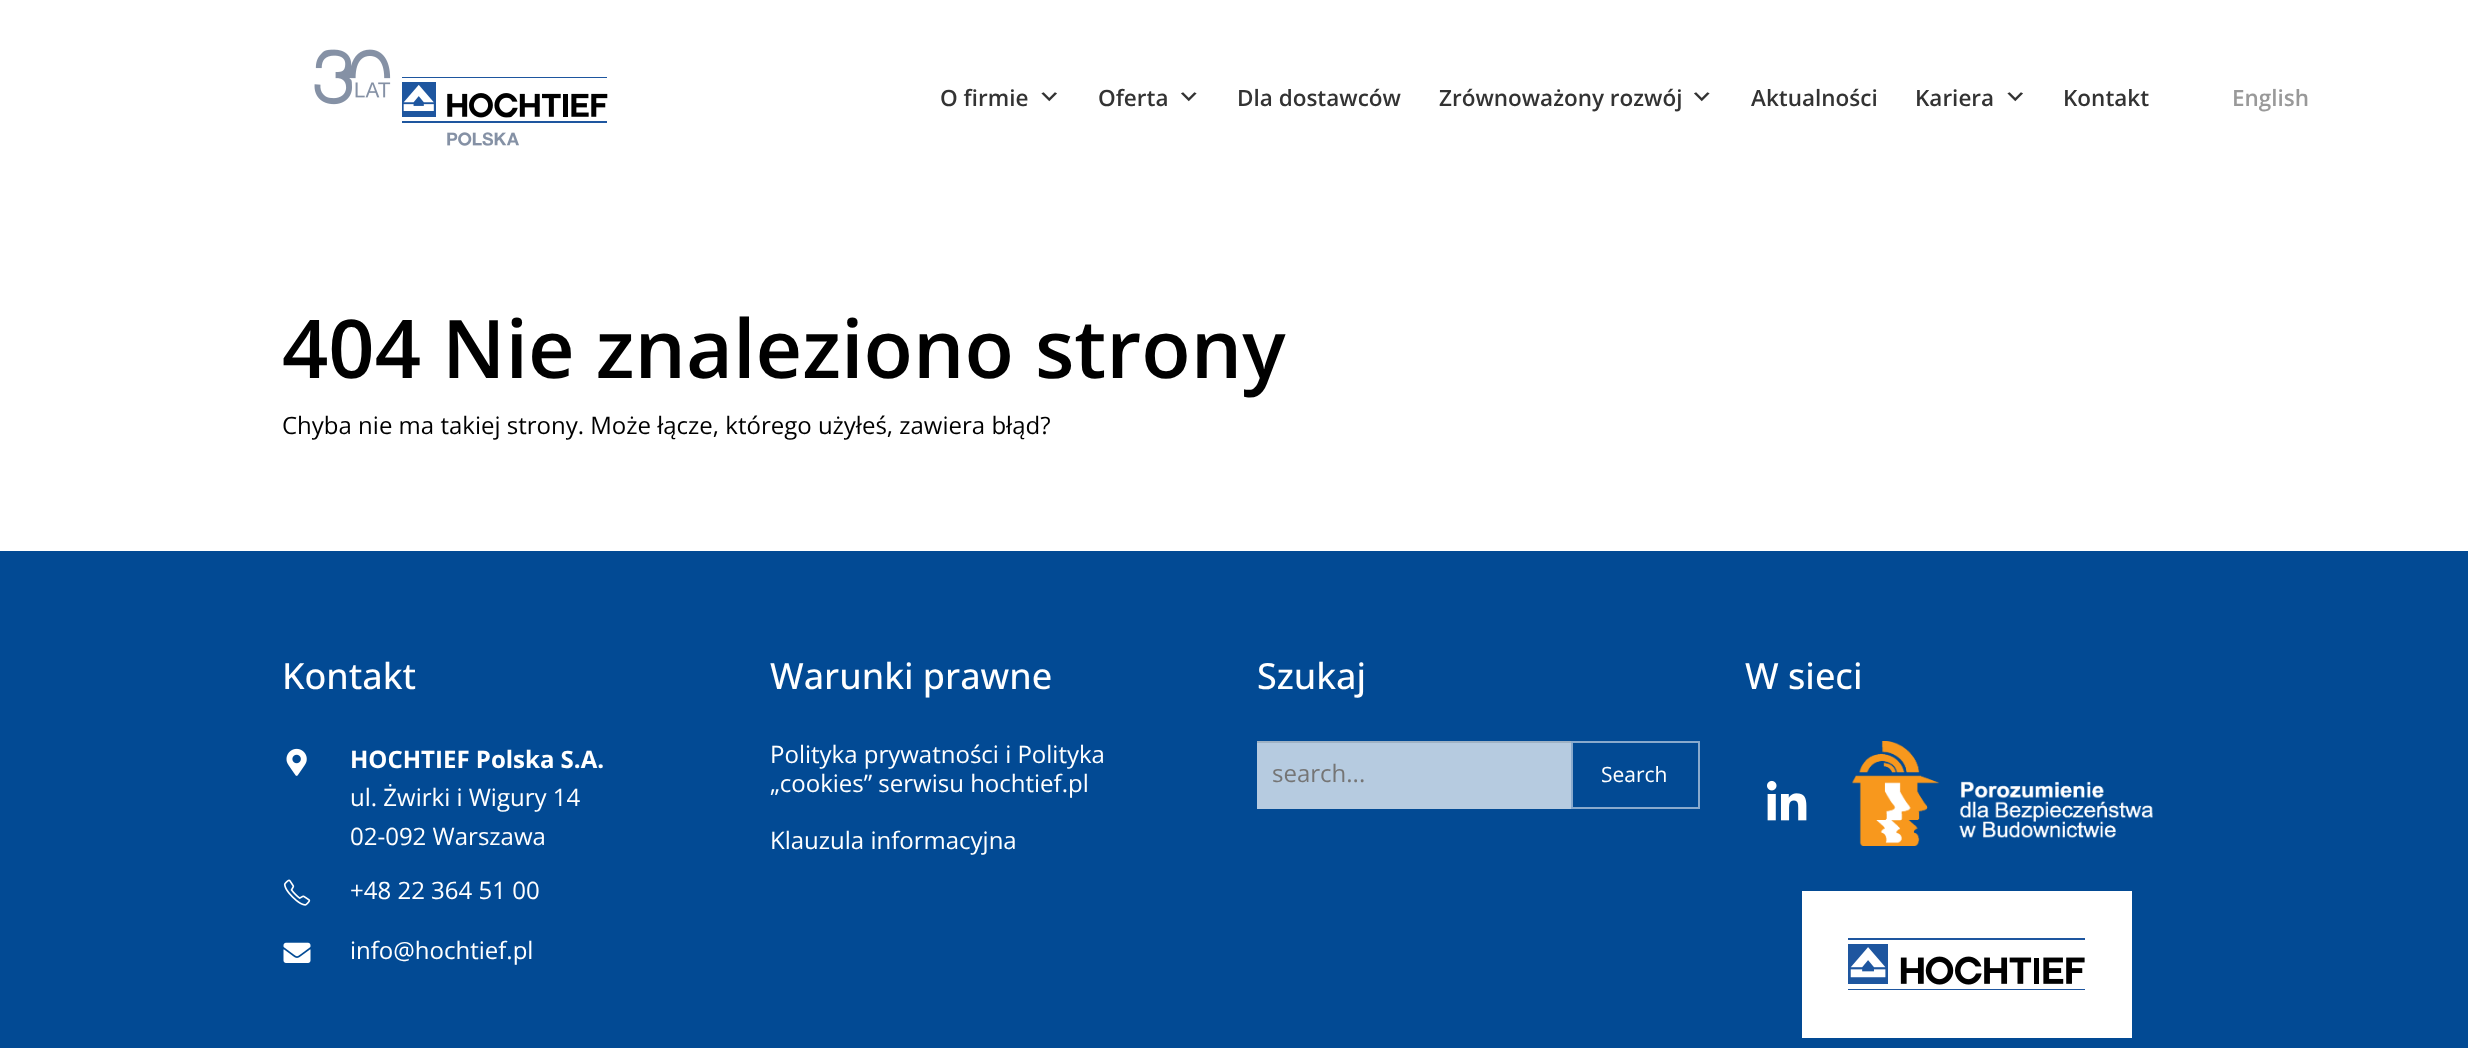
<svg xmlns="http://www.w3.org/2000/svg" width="2468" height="1048">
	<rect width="100%" height="100%" fill="#FFFFFF" />
	<image x="314" y="49" width="294" height="97" href="assets/img1.png" />
	<text x="940" y="106" font-family="Open Sans" font-size="22.5" font-weight="600" fill="#333333">O firmie</text>
	<image x="1041" y="92" width="16" height="10" href="assets/img2.png" />
	<text x="1098" y="106" font-family="Open Sans" font-size="22.5" font-weight="600" fill="#333333">Oferta</text>
	<image x="1181" y="92" width="16" height="10" href="assets/img3.png" />
	<g font-family="Open Sans" font-size="22.5" font-weight="600" fill="#333333">
		<text x="1237" y="106">Dla dostawców</text>
		<text x="1439" y="106">Zrównoważony rozwój</text>
	</g>
	<image x="1694" y="92" width="16" height="10" href="assets/img3.png" />
	<g font-family="Open Sans" font-size="22.5" font-weight="600" fill="#333333">
		<text x="1751" y="106">Aktualności</text>
		<text x="1915" y="106">Kariera</text>
	</g>
	<image x="2007" y="92" width="16" height="10" href="assets/img2.png" />
	<text x="2063" y="106" font-family="Open Sans" font-size="22.5" font-weight="600" fill="#333333">Kontakt</text>
	<text x="2232" y="106" font-family="Open Sans" font-size="22.5" font-weight="600" fill="#999999">English</text>
	<text x="282" y="378" font-family="Open Sans" font-size="81" font-weight="600" fill="#000000">404 Nie znaleziono strony</text>
	<text x="282" y="434" font-family="Open Sans" font-size="24" fill="#000000">Chyba nie ma takiej strony. Może łącze, którego użyłeś, zawiera błąd?</text>
	<rect x="0" y="551" width="2468" height="497" fill="#024A94" />
	<text x="282" y="689" font-family="Open Sans" font-size="36" font-weight="500" fill="#FFFFFF">Kontakt</text>
	<image x="286" y="748" width="21" height="28" href="assets/img4.png" />
	<text x="350" y="768" font-family="Open Sans" font-size="24" font-weight="700" fill="#FFFFFF">HOCHTIEF Polska S.A.</text>
	<g font-family="Open Sans" font-size="24" fill="#FFFFFF">
		<text x="350" y="806">ul. Żwirki i Wigury 14</text>
		<text x="350" y="845">02-092 Warszawa</text>
	</g>
	<image x="283" y="879" width="28" height="27" href="assets/img5.png" />
	<text x="350" y="899" font-family="Open Sans" font-size="24" fill="#FFFFFF">+48 22 364 51 00</text>
	<image x="283" y="942" width="28" height="21" href="assets/img6.png" />
	<text x="350" y="959" font-family="Open Sans" font-size="24" fill="#FFFFFF">info@hochtief.pl</text>
	<text x="770" y="689" font-family="Open Sans" font-size="36" font-weight="500" fill="#FFFFFF">Warunki prawne</text>
	<g font-family="Open Sans" font-size="24" fill="#FFFFFF">
		<text x="770" y="763">Polityka prywatności i Polityka</text>
		<text x="770" y="792">„cookies” serwisu hochtief.pl</text>
		<text x="770" y="849">Klauzula informacyjna</text>
	</g>
	<text x="1257" y="689" font-family="Open Sans" font-size="36" font-weight="500" fill="#FFFFFF">Szukaj</text>
	<rect x="1257" y="743" width="314" height="66" fill="#B6CBE0" />
	<rect x="1257" y="741" width="314" height="2" fill="#9FB2C4" />
	<text x="1272" y="782" font-family="Open Sans" font-size="24" fill="#757575">search...</text>
	<rect x="1572" y="742" width="127" height="66" fill="none" stroke="#89AACD" stroke-width="2" />
	<text x="1601" y="782" font-family="Open Sans" font-size="21" fill="#FFFFFF">Search</text>
	<text x="1745" y="689" font-family="Open Sans" font-size="36" font-weight="500" fill="#FFFFFF">W sieci</text>
	<image x="1767" y="780" width="40" height="41" href="assets/img7.png" />
	<image x="1852" y="741" width="301" height="105" href="assets/img8.png" />
	<rect x="1802" y="891" width="330" height="147" fill="#FFFFFF" />
	<image x="1848" y="938" width="237" height="52" href="assets/img9.png" />
</svg>
